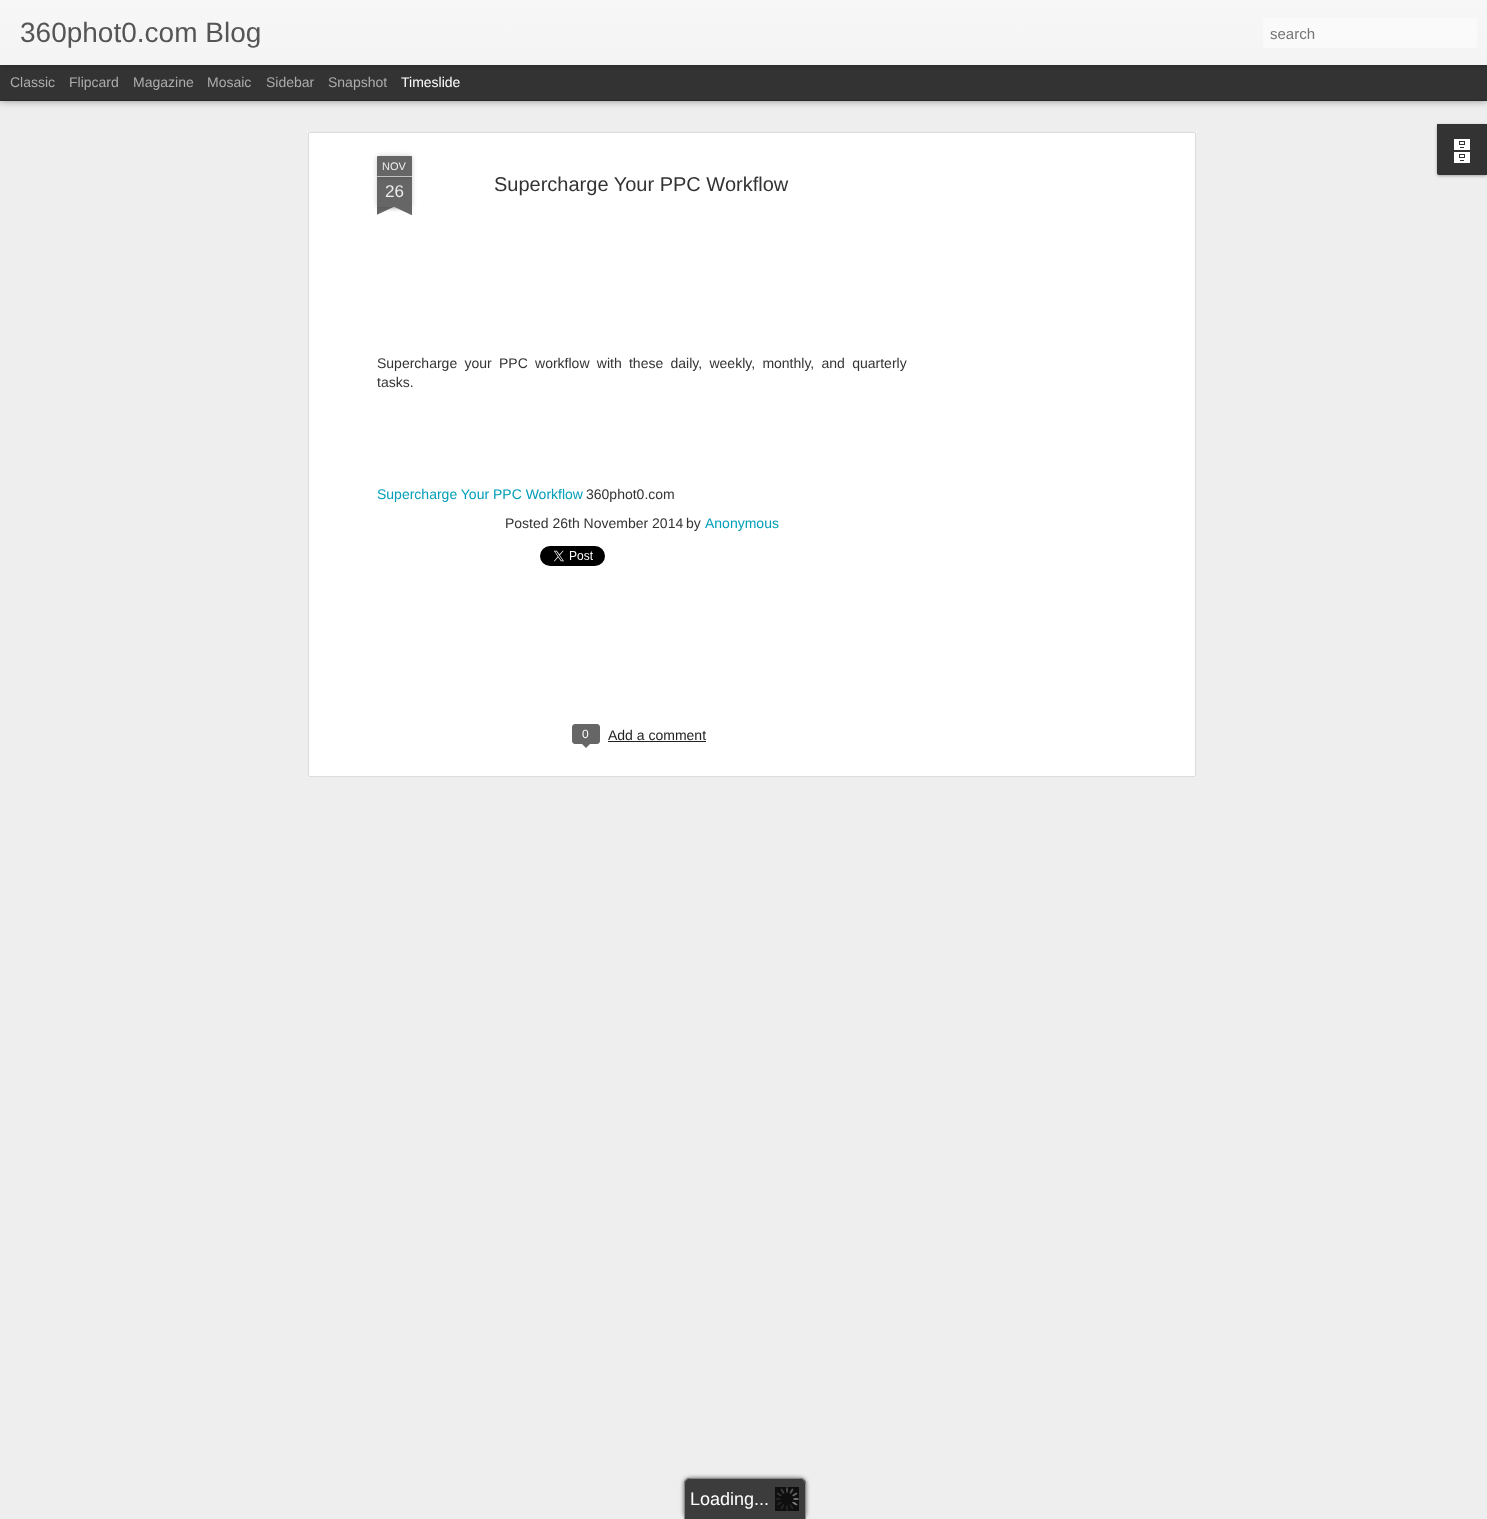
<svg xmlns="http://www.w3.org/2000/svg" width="1487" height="1519">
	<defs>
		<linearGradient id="g1" gradientUnits="userSpaceOnUse" x1="0" y1="0" x2="0" y2="65"><stop offset="0" stop-color="#F7F7F7" /><stop offset="1" stop-color="#F4F4F4" /></linearGradient>
		<clipPath id="clip1"><rect x="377" y="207" width="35" height="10" /></clipPath>
		<clipPath id="clip2"><rect x="377" y="207" width="35" height="10" /></clipPath>
	</defs>
	<rect width="100%" height="100%" fill="#333333" />
	<rect x="0" y="101" width="1487" height="1418" fill="#EEEEEE" />
	<rect x="0" y="65" width="1487" height="35" fill="#000000" fill-opacity="0.5" filter="blur(4px)" />
	<rect x="0" y="65" width="1487" height="35" fill="#333333" />
	<rect x="0" y="0" width="1487" height="65" fill="#000000" fill-opacity="0.3" filter="blur(2.5px)" />
	<rect x="0" y="0" width="1487" height="65" fill="url(#g1)" />
	<text x="20" y="42" font-family="Liberation Sans" font-size="28" fill="#555555">360phot0.com Blog</text>
	<rect x="1263" y="18" width="214" height="30" rx="3" fill="#FAFAFA" />
	<text x="1270" y="39" font-family="Liberation Sans" font-size="15" fill="#757575">search</text>
	<g font-family="Liberation Sans" font-size="14" fill="#ADADAD">
		<text x="10" y="87">Classic</text>
		<text x="69" y="87">Flipcard</text>
		<text x="133" y="87">Magazine</text>
		<text x="207" y="87">Mosaic</text>
		<text x="266" y="87">Sidebar</text>
		<text x="328" y="87">Snapshot</text>
	</g>
	<text x="401" y="87" font-family="Liberation Sans" font-size="14" fill="#FFFFFF">Timeslide</text>
	<rect x="1437" y="125" width="50" height="51" rx="2" fill="#000000" fill-opacity="0.3" filter="blur(1.5px)" />
	<path d="M1437 124H1487V175H1439C1438 175 1437 174 1437 173Z" fill="#333333" />
	<image x="1454" y="139" width="16" height="24" href="assets/img1.png" />
	<rect x="307" y="131" width="890" height="647" fill="#FFFFFF" />
	<image x="307" y="131" width="890" height="647" href="assets/img2.png" />
	<rect x="377" y="177" width="35" height="30" fill="#000000" fill-opacity="0.2" filter="blur(2.5px)" />
	<rect x="377" y="177" width="35" height="30" fill="#666666" />
	<rect x="377" y="156" width="35" height="21" rx="1" fill="#000000" fill-opacity="0.2" filter="blur(2.5px)" />
	<path d="M378 156H411C411.5 156 412 156.5 412 157V177H377V157C377 156.5 377.5 156 378 156Z" fill="#666666" />
	<rect x="377" y="176" width="35" height="1" fill="#C2C2C2" />
	<text x="382" y="170" font-family="Liberation Sans" font-size="11" fill="#EEEEEE">NOV</text>
	<text x="385" y="197" font-family="Liberation Sans" font-size="17" fill="#EEEEEE">26</text>
	<g clip-path="url(#clip1)">
		<rect x="368" y="197" width="50" height="10" fill="#000000" fill-opacity="0.2" filter="blur(2.5px)" />
	</g>
	<g clip-path="url(#clip2)">
		<path d="M368 208L413 187L417 196L372 217Z" fill="#666666" />
	</g>
	<g clip-path="url(#clip1)">
		<rect x="371" y="197" width="50" height="10" fill="#000000" fill-opacity="0.2" filter="blur(2.5px)" />
	</g>
	<g clip-path="url(#clip2)">
		<path d="M375 187L420 208L416 217L371 196Z" fill="#666666" />
	</g>
	<text x="494" y="191" font-family="Liberation Sans" font-size="20" fill="#333333">Supercharge Your PPC Workflow</text>
	<g font-family="Liberation Sans" font-size="14" fill="#333333">
		<text x="377" y="368" word-spacing="3.4">Supercharge your PPC workflow with these daily, weekly, monthly, and quarterly</text>
		<text x="377" y="387">tasks.</text>
	</g>
	<text x="377" y="499" font-family="Liberation Sans" font-size="14" fill="#009EB8">Supercharge Your PPC Workflow</text>
	<g font-family="Liberation Sans" font-size="14" fill="#333333">
		<text x="586" y="499">360phot0.com</text>
		<text x="505" y="528">Posted 26th November 2014</text>
		<text x="686" y="528">by</text>
	</g>
	<text x="705" y="528" font-family="Liberation Sans" font-size="14" fill="#009EB8">Anonymous</text>
	<image x="540" y="546" width="65" height="20" href="assets/img3.png" />
	<rect x="572.5" y="724.5" width="27" height="19" rx="2.5" fill="#666666" stroke="#666666" />
	<text x="582" y="738" font-family="Liberation Sans" font-size="12" fill="#FFFFFF">0</text>
	<path d="M581 743H591L586 748Z" fill="#666666" />
	<text x="608" y="740" font-family="Liberation Sans" font-size="14" fill="#222222">Add a comment</text>
	<rect x="608" y="741" width="98" height="1" fill="#222222" />
	<rect x="684" y="1478" width="122" height="41" rx="6" fill="#626262" filter="blur(2px)" />
	<path d="M690 1478H800C803.5 1478 806 1480.5 806 1484V1519H684V1484C684 1480.5 686.5 1478 690 1478Z" fill="#3C3C3C" />
	<path d="M690 1478H800C803 1478 806 1481 806 1484V1519H684V1484C684 1481 687 1478 690 1478ZM690 1479H800C803 1479 805 1481 805 1484V1519H685V1484C685 1481 687 1479 690 1479Z" fill="#888888" fill-rule="evenodd" />
	<image x="775" y="1487" width="24" height="24" href="assets/img4.png" />
	<text x="690" y="1505" font-family="Liberation Sans" font-size="18" fill="#FFFFFF">Loading...</text>
</svg>
